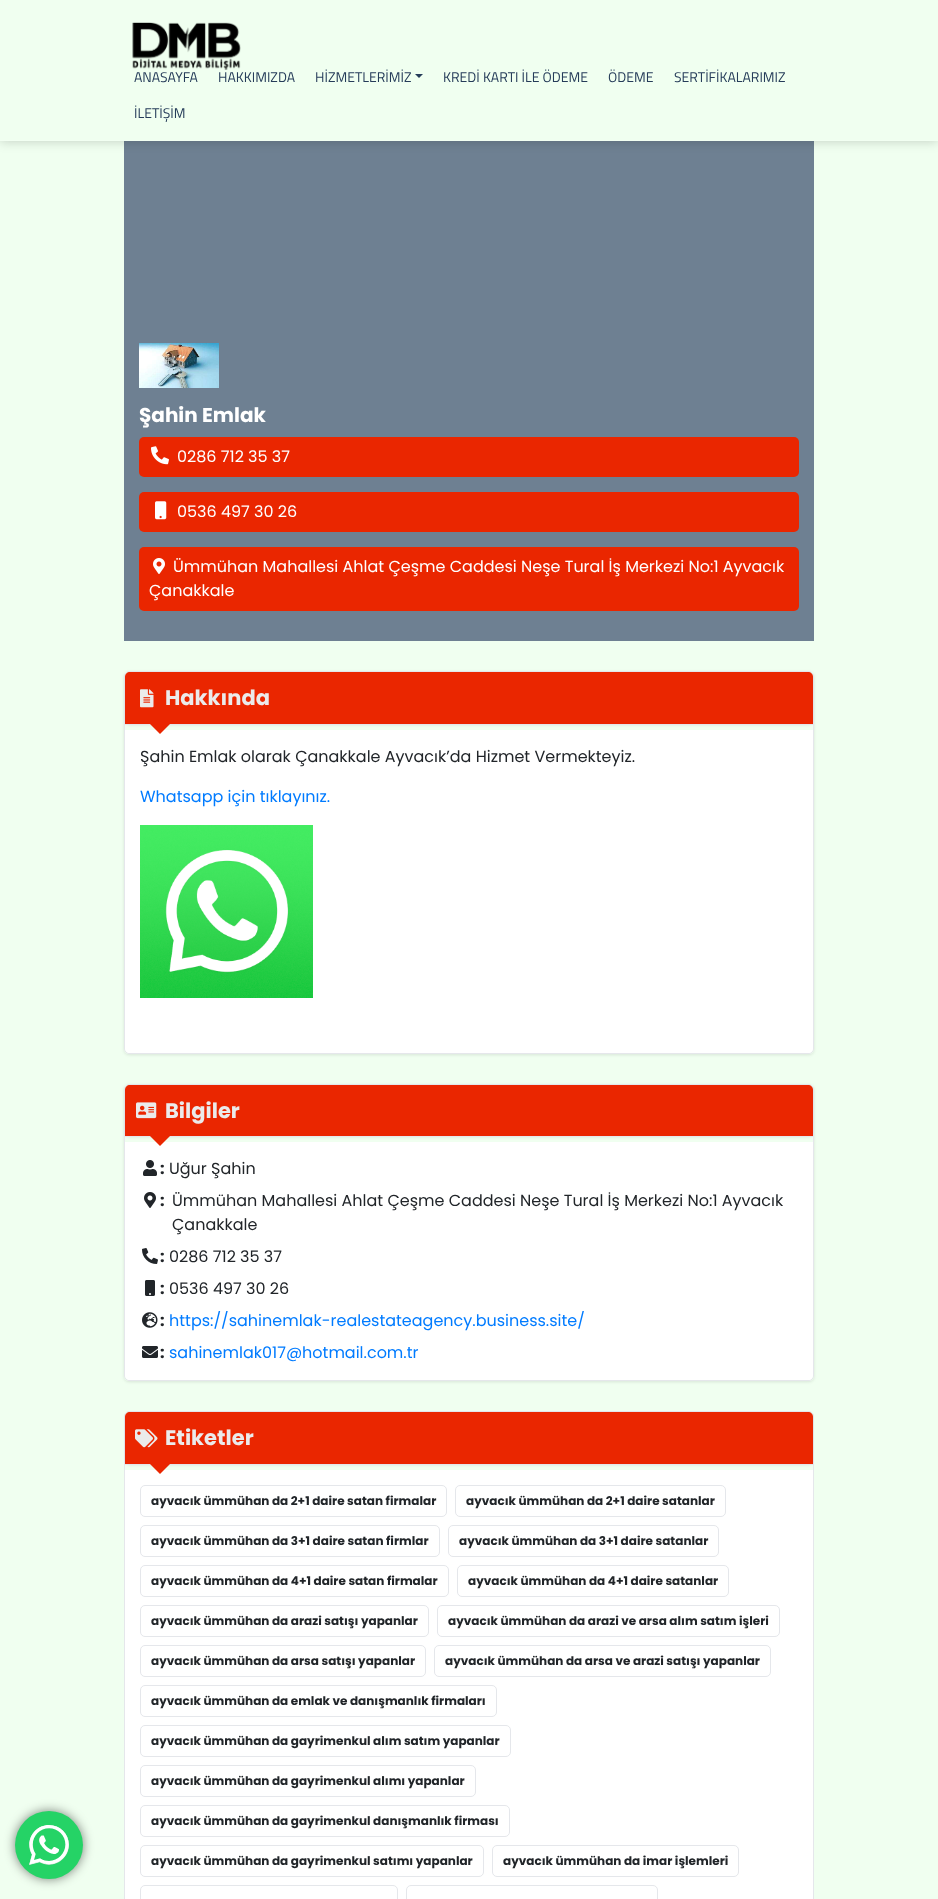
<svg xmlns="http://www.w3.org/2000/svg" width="938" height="1899">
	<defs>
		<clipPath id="clip1"><path d="M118 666H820V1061H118ZM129 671H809C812 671 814 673 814 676V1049C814 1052 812 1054 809 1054H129C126 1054 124 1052 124 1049V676C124 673 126 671 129 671Z" clip-rule="evenodd" /></clipPath>
		<clipPath id="clip2"><path d="M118 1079H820V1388H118ZM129 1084H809C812 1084 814 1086 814 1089V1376C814 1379 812 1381 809 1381H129C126 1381 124 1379 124 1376V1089C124 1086 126 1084 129 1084Z" clip-rule="evenodd" /></clipPath>
	</defs>
	<rect width="100%" height="100%" fill="#F0FFF0" />
	<rect x="15" y="1811" width="68" height="68" rx="34" fill="#000000" fill-opacity="0.5" filter="blur(5.5px)" />
	<circle cx="49" cy="1845" r="34" fill="#25D366" />
	<image x="29" y="1825" width="40" height="40" href="assets/img1.png" />
	<rect x="124" y="141" width="690" height="500" fill="#6E8092" />
	<rect x="0" y="0" width="938" height="141" fill="#000000" fill-opacity="0.2" filter="blur(6px)" />
	<rect x="0" y="0" width="938" height="140" fill="#F0FFF0" />
	<rect x="0" y="140" width="938" height="1" fill="#F2FFF2" />
	<image x="132" y="22" width="109" height="48" href="assets/img2.png" />
	<g font-family="Titillium Web" font-size="14" fill="#253C59">
		<text x="134" y="82">ANASAYFA</text>
		<text x="218" y="82">HAKKIMIZDA</text>
		<text x="315" y="82">HİZMETLERİMİZ</text>
	</g>
	<path d="M415 74H423L419 78Z" fill="#253C59" />
	<g font-family="Titillium Web" font-size="14" fill="#253C59">
		<text x="443" y="82">KREDİ KARTI İLE ÖDEME</text>
		<text x="608" y="82">ÖDEME</text>
		<text x="674" y="82">SERTİFİKALARIMIZ</text>
		<text x="134" y="118">İLETİŞİM</text>
	</g>
	<image x="139" y="343" width="80" height="45" href="assets/img3.png" />
	<text x="139" y="422" font-family="Poppins" font-size="20" font-weight="700" fill="#FFFFFF">Şahin Emlak</text>
	<rect x="139" y="437" width="660" height="40" rx="5" fill="#EA2600" />
	<image x="151" y="446" width="18" height="19" href="assets/img4.png" />
	<text x="177" y="462" font-family="Poppins" font-size="16" fill="#FFFFFF">0286 712 35 37</text>
	<rect x="139" y="492" width="660" height="40" rx="5" fill="#EA2600" />
	<image x="155" y="501" width="12" height="19" href="assets/img5.png" />
	<text x="177" y="517" font-family="Poppins" font-size="16" fill="#FFFFFF">0536 497 30 26</text>
	<rect x="139" y="547" width="660" height="64" rx="5" fill="#EA2600" />
	<image x="153" y="558" width="12" height="16" href="assets/img6.png" />
	<g font-family="Poppins" font-size="16" fill="#FFFFFF">
		<text x="173" y="572">Ümmühan Mahallesi Ahlat Çeşme Caddesi Neşe Tural İş Merkezi No:1 Ayvacık</text>
		<text x="149" y="596">Çanakkale</text>
	</g>
	<g clip-path="url(#clip1)">
		<rect x="124" y="672" width="690" height="383" rx="5" fill="#000000" fill-opacity="0.1" filter="blur(1.5px)" />
	</g>
	<rect x="124.5" y="671.5" width="689" height="382" rx="4.5" fill="none" stroke="#E5E7EB" />
	<rect x="125" y="673" width="688" height="53" rx="5" fill="#000000" fill-opacity="0.05" filter="blur(1px)" />
	<path d="M130 672H808C811 672 813 674 813 677V725H125V677C125 674 127 672 130 672Z" fill="#EA2600" />
	<rect x="125" y="724" width="688" height="1" fill="#E5E7EB" />
	<image x="140" y="689" width="14" height="19" href="assets/img7.png" />
	<text x="165" y="705" font-family="Poppins" font-size="21" font-weight="700" fill="#EBEBEB">Hakkında</text>
	<path d="M125 730H813V1048C813 1051 811 1053 808 1053H130C127 1053 125 1051 125 1048Z" fill="#FFFFFF" />
	<path d="M150 724H170L160 734Z" fill="#EA2600" />
	<text x="140" y="762" font-family="Poppins" font-size="16" fill="#212529">Şahin Emlak olarak Çanakkale Ayvacık’da Hizmet Vermekteyiz.</text>
	<text x="140" y="802" font-family="Poppins" font-size="16" fill="#007BFF">Whatsapp için tıklayınız.</text>
	<image x="140" y="825" width="173" height="173" href="assets/img8.png" />
	<g clip-path="url(#clip2)">
		<rect x="124" y="1085" width="690" height="297" rx="5" fill="#000000" fill-opacity="0.1" filter="blur(1.5px)" />
	</g>
	<rect x="124.5" y="1084.5" width="689" height="296" rx="4.5" fill="none" stroke="#E5E7EB" />
	<rect x="125" y="1086" width="688" height="52" rx="5" fill="#000000" fill-opacity="0.05" filter="blur(1px)" />
	<path d="M130 1085H808C811 1085 813 1087 813 1090V1137H125V1090C125 1087 127 1085 130 1085Z" fill="#EA2600" />
	<rect x="125" y="1136" width="688" height="1" fill="#E5E7EB" />
	<image x="136" y="1102" width="21" height="17" href="assets/img9.png" />
	<text x="165" y="1118" font-family="Poppins" font-size="21" font-weight="700" fill="#EBEBEB">Bilgiler</text>
	<path d="M125 1142H813V1375C813 1378 811 1380 808 1380H130C127 1380 125 1378 125 1375Z" fill="#FFFFFF" />
	<path d="M150 1136H170L160 1146Z" fill="#EA2600" />
	<image x="143" y="1160" width="14" height="16" href="assets/img10.png" />
	<text x="160" y="1174" font-family="Poppins" font-size="16" font-weight="700" fill="#212529">:</text>
	<text x="169" y="1174" font-family="Poppins" font-size="16" fill="#212529">Uğur Şahin</text>
	<image x="144" y="1192" width="12" height="16" href="assets/img11.png" />
	<text x="160" y="1206" font-family="Poppins" font-size="16" font-weight="700" fill="#212529">:</text>
	<g font-family="Poppins" font-size="16" fill="#212529">
		<text x="172" y="1206">Ümmühan Mahallesi Ahlat Çeşme Caddesi Neşe Tural İş Merkezi No:1 Ayvacık</text>
		<text x="172" y="1230">Çanakkale</text>
	</g>
	<image x="142" y="1248" width="16" height="16" href="assets/img12.png" />
	<text x="160" y="1262" font-family="Poppins" font-size="16" font-weight="700" fill="#212529">:</text>
	<text x="169" y="1262" font-family="Poppins" font-size="16" fill="#212529">0286 712 35 37</text>
	<image x="145" y="1280" width="10" height="16" href="assets/img13.png" />
	<text x="160" y="1294" font-family="Poppins" font-size="16" font-weight="700" fill="#212529">:</text>
	<text x="169" y="1294" font-family="Poppins" font-size="16" fill="#212529">0536 497 30 26</text>
	<image x="142" y="1312" width="16" height="16" href="assets/img14.png" />
	<text x="160" y="1326" font-family="Poppins" font-size="16" font-weight="700" fill="#212529">:</text>
	<text x="169" y="1326" font-family="Poppins" font-size="16" fill="#007BFF">https://sahinemlak-realestateagency.business.site/</text>
	<image x="142" y="1346" width="16" height="12" href="assets/img15.png" />
	<text x="160" y="1358" font-family="Poppins" font-size="16" font-weight="700" fill="#212529">:</text>
	<text x="169" y="1358" font-family="Poppins" font-size="16" fill="#007BFF">sahinemlak017@hotmail.com.tr</text>
	<rect x="124.5" y="1411.5" width="689" height="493" rx="4.5" fill="none" stroke="#E5E7EB" />
	<rect x="125" y="1413" width="688" height="53" rx="5" fill="#000000" fill-opacity="0.05" filter="blur(1px)" />
	<path d="M130 1412H808C811 1412 813 1414 813 1417V1465H125V1417C125 1414 127 1412 130 1412Z" fill="#EA2600" />
	<rect x="125" y="1464" width="688" height="1" fill="#E5E7EB" />
	<image x="135" y="1429" width="23" height="19" href="assets/img16.png" />
	<text x="165" y="1445" font-family="Poppins" font-size="21" font-weight="700" fill="#EBEBEB">Etiketler</text>
	<rect x="125" y="1470" width="688" height="429" fill="#FFFFFF" />
	<path d="M150 1464H170L160 1474Z" fill="#EA2600" />
	<rect x="140.5" y="1485.5" width="306" height="31" rx="4.5" fill="none" stroke="#E5E7EB" />
	<text x="151" y="1505" font-family="Poppins" font-size="12" font-weight="700" fill="#212529">ayvacık ümmühan da 2+1 daire satan firmalar</text>
	<rect x="455.5" y="1485.5" width="270" height="31" rx="4.5" fill="none" stroke="#E5E7EB" />
	<text x="466" y="1505" font-family="Poppins" font-size="12" font-weight="700" fill="#212529">ayvacık ümmühan da 2+1 daire satanlar</text>
	<rect x="140.5" y="1525.5" width="299" height="31" rx="4.5" fill="none" stroke="#E5E7EB" />
	<text x="151" y="1545" font-family="Poppins" font-size="12" font-weight="700" fill="#212529">ayvacık ümmühan da 3+1 daire satan firmlar</text>
	<rect x="448.5" y="1525.5" width="270" height="31" rx="4.5" fill="none" stroke="#E5E7EB" />
	<text x="459" y="1545" font-family="Poppins" font-size="12" font-weight="700" fill="#212529">ayvacık ümmühan da 3+1 daire satanlar</text>
	<rect x="140.5" y="1565.5" width="308" height="31" rx="4.5" fill="none" stroke="#E5E7EB" />
	<text x="151" y="1585" font-family="Poppins" font-size="12" font-weight="700" fill="#212529">ayvacık ümmühan da 4+1 daire satan firmalar</text>
	<rect x="457.5" y="1565.5" width="271" height="31" rx="4.5" fill="none" stroke="#E5E7EB" />
	<text x="468" y="1585" font-family="Poppins" font-size="12" font-weight="700" fill="#212529">ayvacık ümmühan da 4+1 daire satanlar</text>
	<rect x="140.5" y="1605.5" width="288" height="31" rx="4.5" fill="none" stroke="#E5E7EB" />
	<text x="151" y="1625" font-family="Poppins" font-size="12" font-weight="700" fill="#212529">ayvacık ümmühan da arazi satışı yapanlar</text>
	<rect x="437.5" y="1605.5" width="342" height="31" rx="4.5" fill="none" stroke="#E5E7EB" />
	<text x="448" y="1625" font-family="Poppins" font-size="12" font-weight="700" fill="#212529">ayvacık ümmühan da arazi ve arsa alım satım işleri</text>
	<rect x="140.5" y="1645.5" width="285" height="31" rx="4.5" fill="none" stroke="#E5E7EB" />
	<text x="151" y="1665" font-family="Poppins" font-size="12" font-weight="700" fill="#212529">ayvacık ümmühan da arsa satışı yapanlar</text>
	<rect x="434.5" y="1645.5" width="336" height="31" rx="4.5" fill="none" stroke="#E5E7EB" />
	<text x="445" y="1665" font-family="Poppins" font-size="12" font-weight="700" fill="#212529">ayvacık ümmühan da arsa ve arazi satışı yapanlar</text>
	<rect x="140.5" y="1685.5" width="356" height="31" rx="4.5" fill="none" stroke="#E5E7EB" />
	<text x="151" y="1705" font-family="Poppins" font-size="12" font-weight="700" fill="#212529">ayvacık ümmühan da emlak ve danışmanlık firmaları</text>
	<rect x="140.5" y="1725.5" width="370" height="31" rx="4.5" fill="none" stroke="#E5E7EB" />
	<text x="151" y="1745" font-family="Poppins" font-size="12" font-weight="700" fill="#212529">ayvacık ümmühan da gayrimenkul alım satım yapanlar</text>
	<rect x="140.5" y="1765.5" width="335" height="31" rx="4.5" fill="none" stroke="#E5E7EB" />
	<text x="151" y="1785" font-family="Poppins" font-size="12" font-weight="700" fill="#212529">ayvacık ümmühan da gayrimenkul alımı yapanlar</text>
	<rect x="140.5" y="1805.5" width="369" height="31" rx="4.5" fill="none" stroke="#E5E7EB" />
	<text x="151" y="1825" font-family="Poppins" font-size="12" font-weight="700" fill="#212529">ayvacık ümmühan da gayrimenkul danışmanlık firması</text>
	<rect x="140.5" y="1845.5" width="343" height="31" rx="4.5" fill="none" stroke="#E5E7EB" />
	<text x="151" y="1865" font-family="Poppins" font-size="12" font-weight="700" fill="#212529">ayvacık ümmühan da gayrimenkul satımı yapanlar</text>
	<rect x="492.5" y="1845.5" width="246" height="31" rx="4.5" fill="none" stroke="#E5E7EB" />
	<text x="503" y="1865" font-family="Poppins" font-size="12" font-weight="700" fill="#212529">ayvacık ümmühan da imar işlemleri</text>
	<rect x="140.5" y="1885.5" width="257" height="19" rx="4.5" fill="none" stroke="#E5E7EB" />
	<rect x="406.5" y="1885.5" width="251" height="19" rx="4.5" fill="none" stroke="#E5E7EB" />
</svg>
